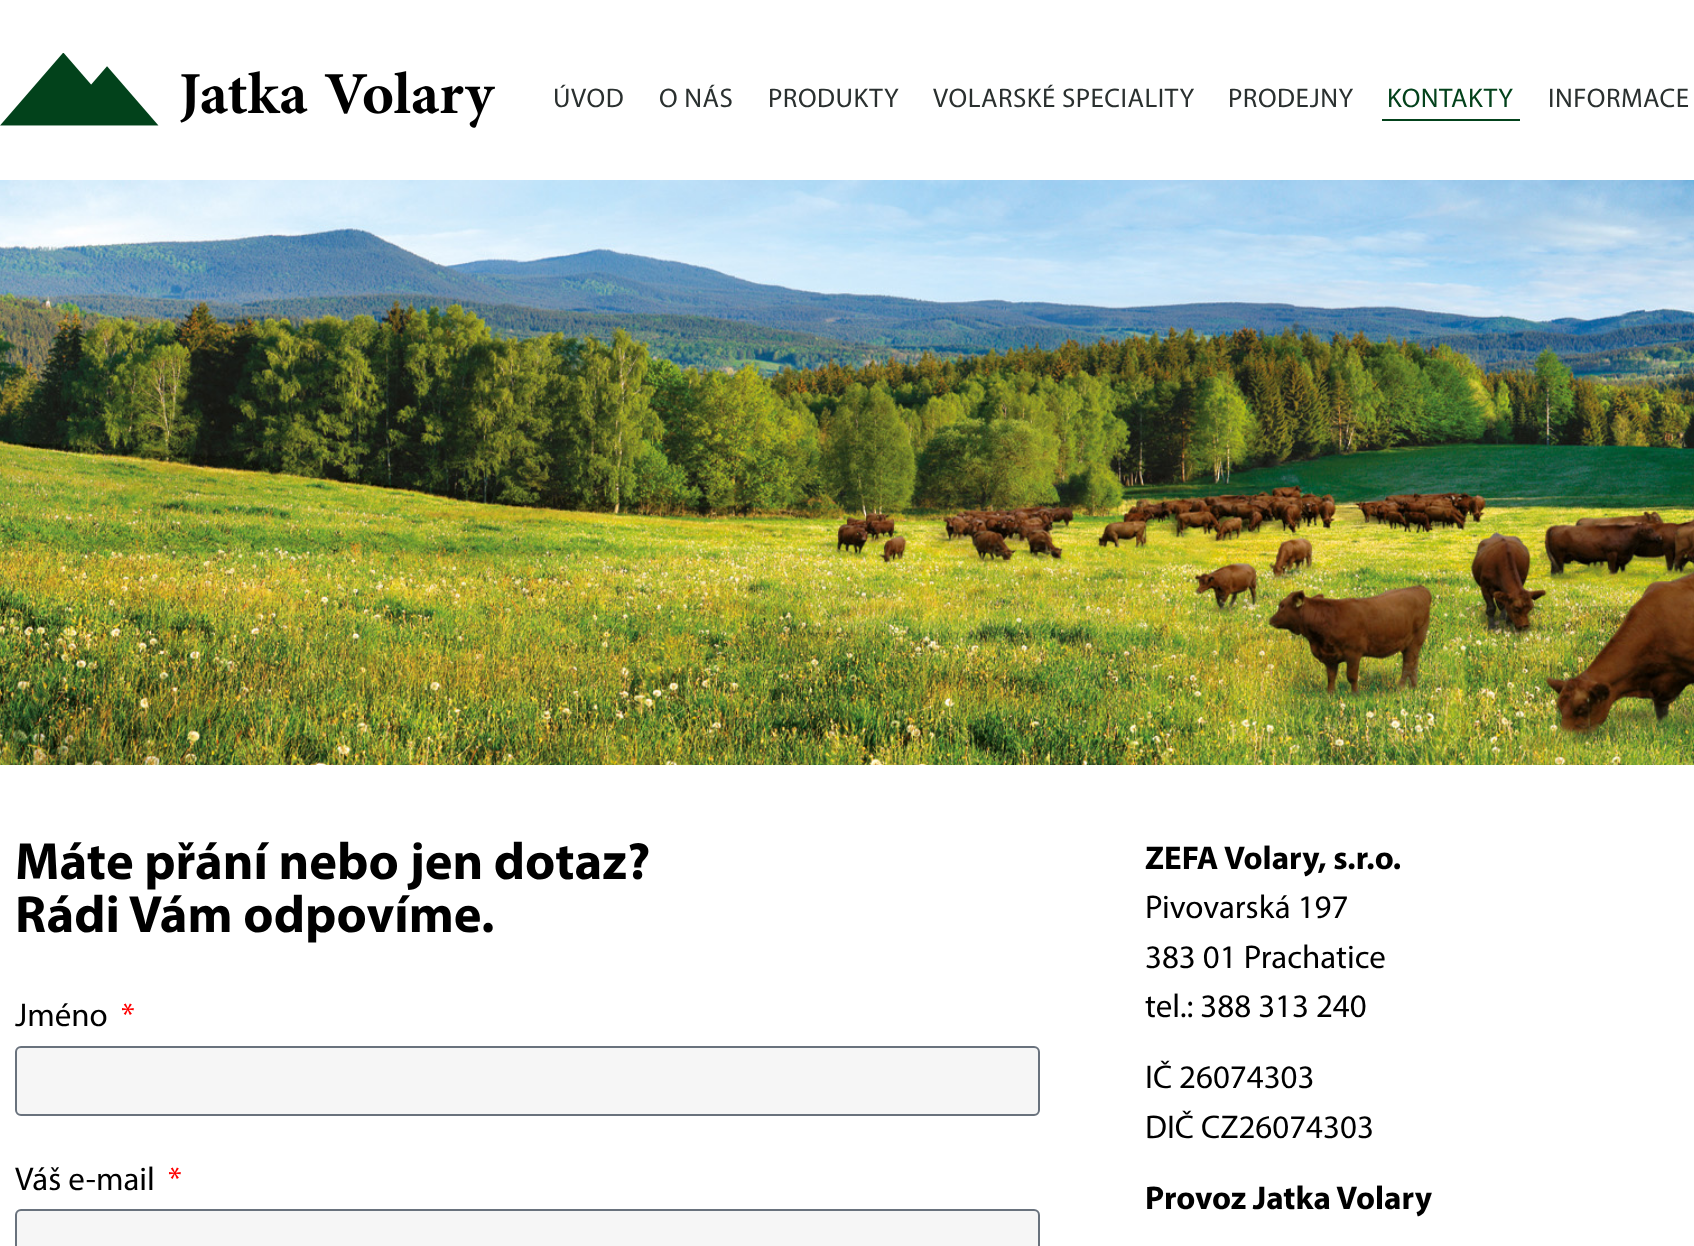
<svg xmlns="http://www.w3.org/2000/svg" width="1694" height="1246">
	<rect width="100%" height="100%" fill="#FFFFFF" />
	<image x="0" y="53" width="495" height="75" href="assets/img1.png" />
	<g font-family="Myriad" font-size="27" letter-spacing="0.5" fill="#2A302F">
		<text x="553" y="107">ÚVOD</text>
		<text x="659" y="107">O NÁS</text>
		<text x="768" y="107">PRODUKTY</text>
		<text x="933" y="107">VOLARSKÉ SPECIALITY</text>
		<text x="1228" y="107">PRODEJNY</text>
	</g>
	<text x="1387" y="107" font-family="Myriad" font-size="27" letter-spacing="0.5" fill="#03421B">KONTAKTY</text>
	<rect x="1382" y="119" width="138" height="2" fill="#03421B" />
	<text x="1548" y="107" font-family="Myriad" font-size="27" letter-spacing="0.5" fill="#2A302F">INFORMACE</text>
	<image x="0" y="180" width="1694" height="585" href="assets/img2.png" />
	<g font-family="Myriad" font-size="52.5" font-weight="700" fill="#000000">
		<text x="15" y="879">Máte přání nebo jen dotaz?</text>
		<text x="15" y="932">Rádi Vám odpovíme.</text>
	</g>
	<text x="15" y="1026" font-family="Myriad" font-size="33" fill="#000000">Jméno</text>
	<text x="121" y="1026" font-family="Myriad" font-size="33" fill="#FF0000">*</text>
	<rect x="16" y="1047" width="1023" height="68" rx="5" fill="#F6F6F6" stroke="#69727D" stroke-width="2" />
	<text x="15" y="1190" font-family="Myriad" font-size="33" fill="#000000">Váš e-mail</text>
	<text x="168" y="1190" font-family="Myriad" font-size="33" fill="#FF0000">*</text>
	<rect x="16" y="1210" width="1023" height="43" rx="5" fill="#F6F6F6" stroke="#69727D" stroke-width="2" />
	<text x="1145" y="869" font-family="Myriad" font-size="33" font-weight="700" fill="#000000">ZEFA Volary, s.r.o.</text>
	<g font-family="Myriad" font-size="33" fill="#000000">
		<text x="1145" y="918">Pivovarská 197</text>
		<text x="1145" y="968">383 01 Prachatice</text>
		<text x="1145" y="1017">tel.: 388 313 240</text>
		<text x="1145" y="1088">IČ 26074303</text>
		<text x="1145" y="1138">DIČ CZ26074303</text>
	</g>
	<text x="1145" y="1209" font-family="Myriad" font-size="33" font-weight="700" fill="#000000">Provoz Jatka Volary</text>
</svg>
